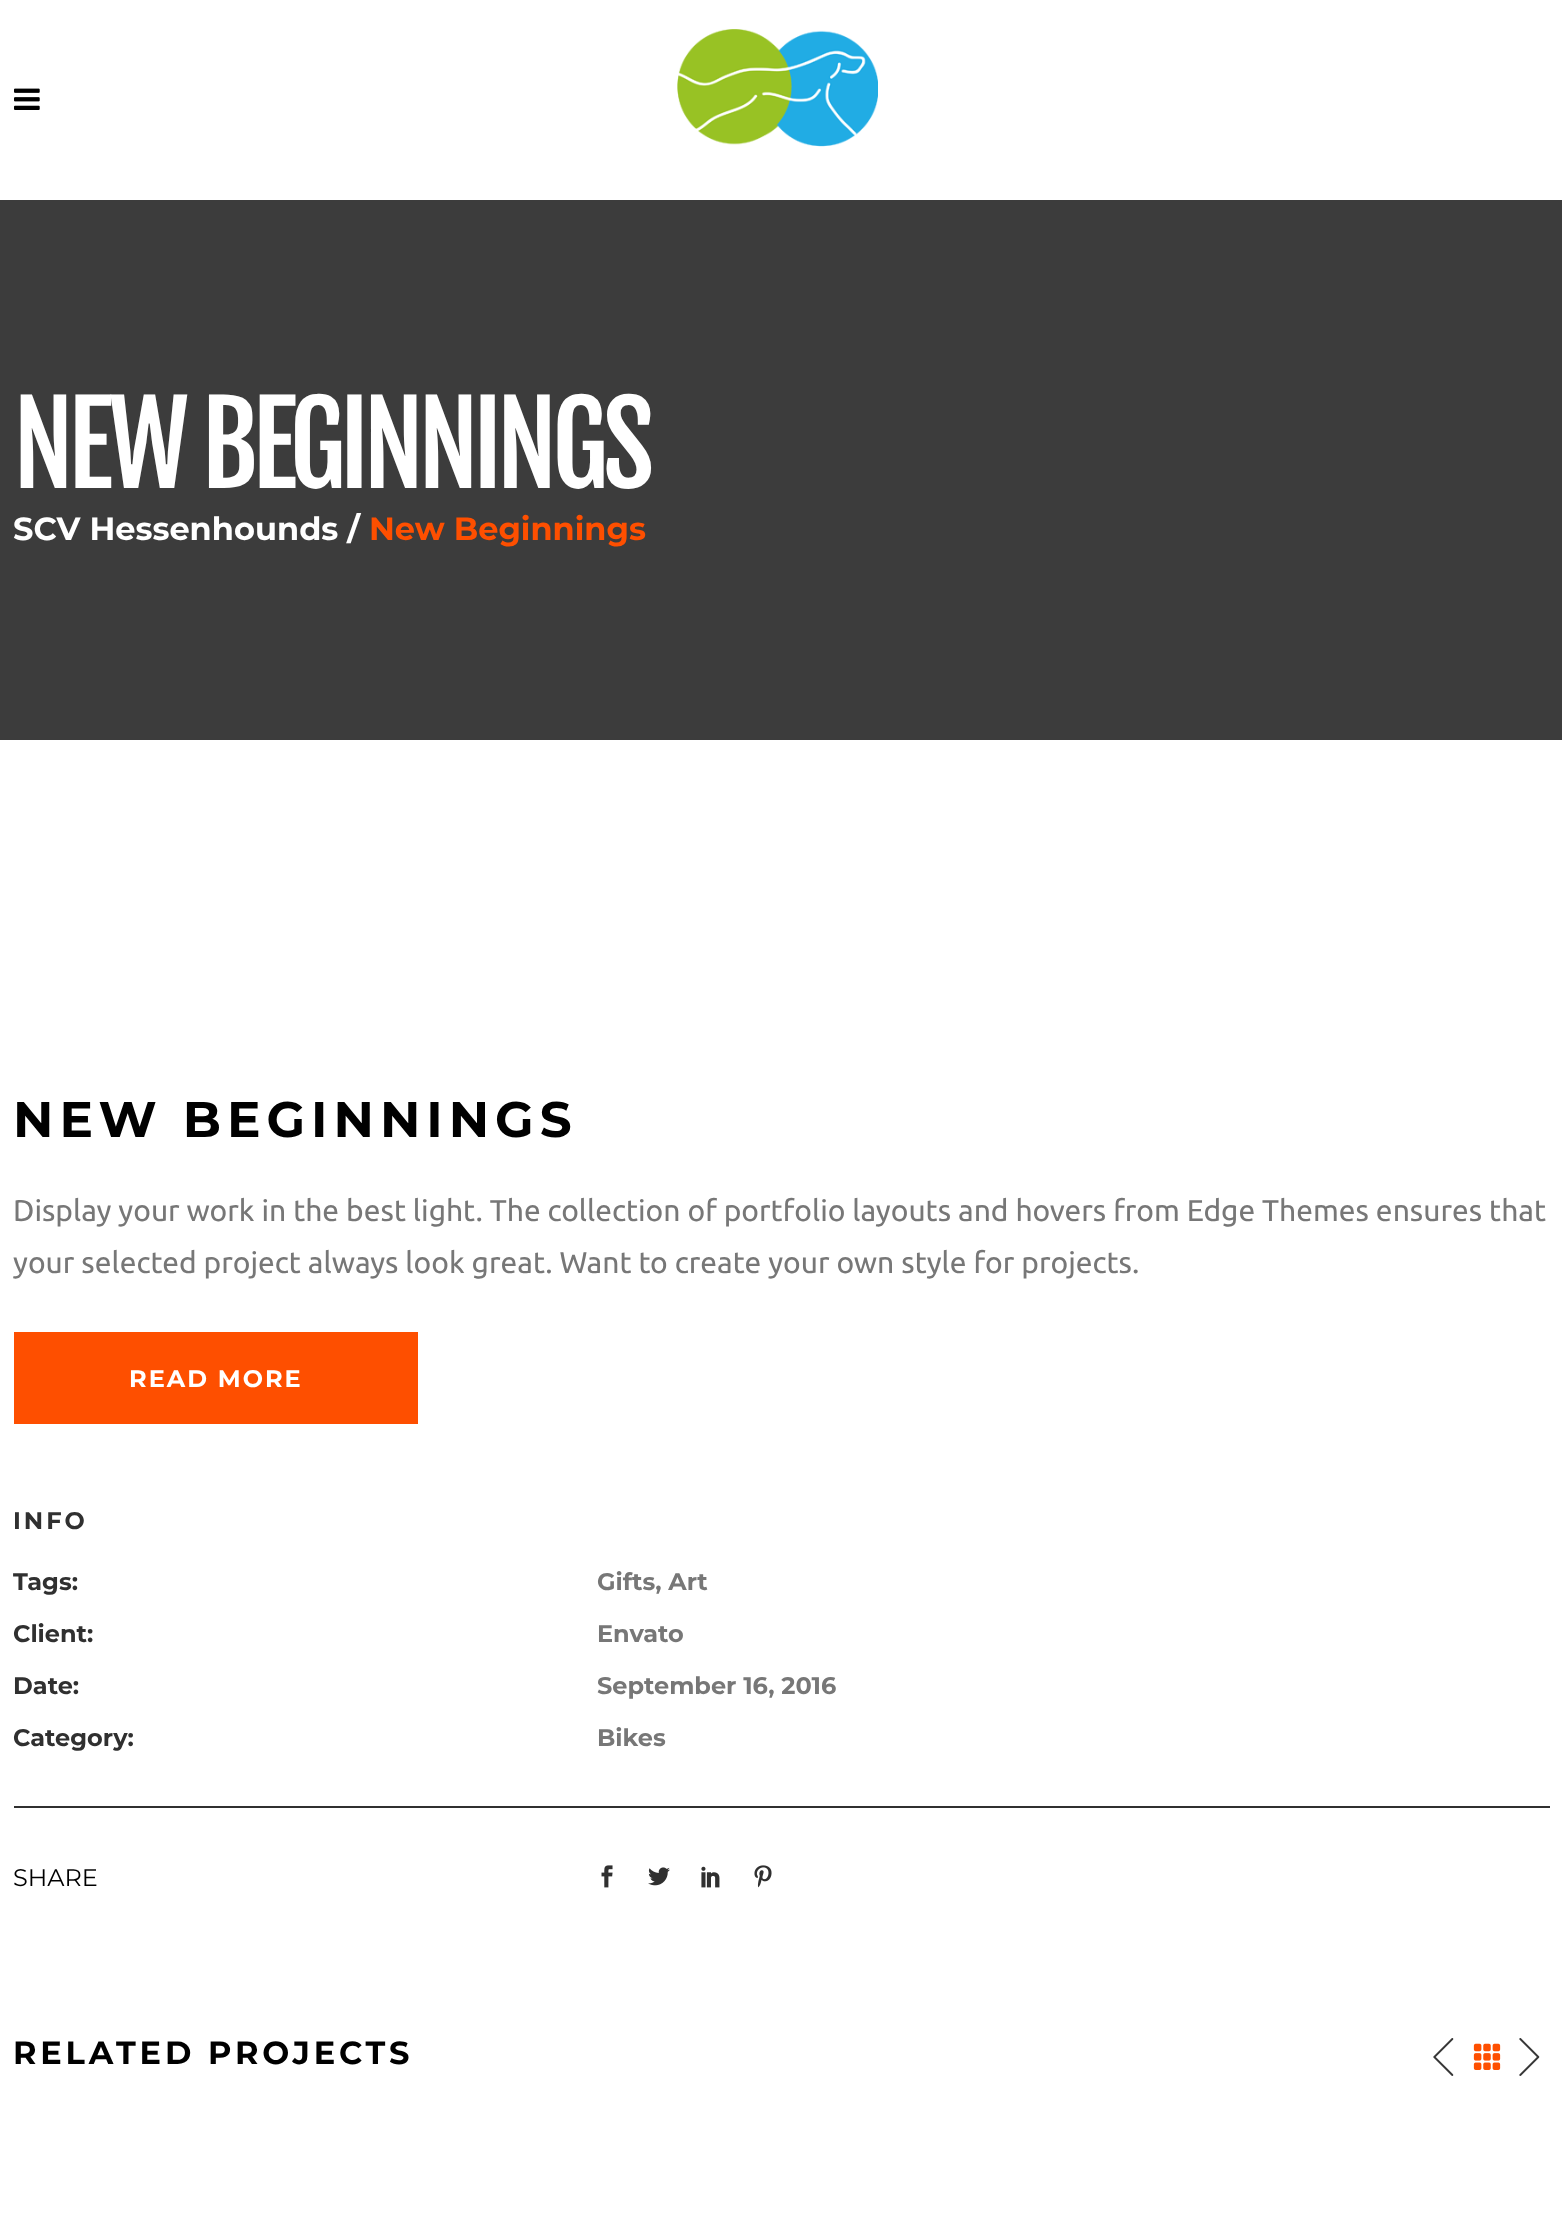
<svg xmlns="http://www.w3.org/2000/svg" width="1562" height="2219">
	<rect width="100%" height="100%" fill="#FFFFFF" />
	<image x="14" y="88" width="26" height="22" href="assets/img1.png" />
	<image x="677" y="29" width="201" height="118" href="assets/img2.png" />
	<rect x="0" y="200" width="1562" height="540" fill="#3C3C3C" />
	<text x="13" y="488" font-family="Fjalla One" font-size="112" letter-spacing="-6" fill="#FFFFFF">NEW BEGINNINGS</text>
	<text x="13" y="540" font-family="Montserrat" font-size="32" font-weight="700" fill="#FFFFFF">SCV Hessenhounds /</text>
	<text x="369" y="540" font-family="Montserrat" font-size="32" font-weight="700" fill="#FE4F00">New Beginnings</text>
	<text x="13" y="1137" font-family="Montserrat" font-size="50" font-weight="700" letter-spacing="6" fill="#000000">NEW BEGINNINGS</text>
	<g font-family="Ubuntu" font-size="30" fill="#777777">
		<text x="13" y="1221">Display your work in the best light. The collection of portfolio layouts and hovers from Edge Themes ensures that</text>
		<text x="13" y="1273">your selected project always look great. Want to create your own style for projects.</text>
	</g>
	<rect x="14" y="1332" width="404" height="92" fill="#FE4F00" />
	<text x="129" y="1387" font-family="Montserrat" font-size="24" font-weight="700" letter-spacing="2" fill="#FFFFFF">READ MORE</text>
	<text x="13" y="1529" font-family="Montserrat" font-size="24" font-weight="700" letter-spacing="3" fill="#303030">INFO</text>
	<text x="13" y="1590" font-family="Montserrat" font-size="24" font-weight="700" fill="#303030">Tags:</text>
	<text x="597" y="1590" font-family="Montserrat" font-size="24" font-weight="700" fill="#777777">Gifts, Art</text>
	<text x="13" y="1642" font-family="Montserrat" font-size="24" font-weight="700" fill="#303030">Client:</text>
	<text x="597" y="1642" font-family="Montserrat" font-size="24" font-weight="700" fill="#777777">Envato</text>
	<text x="13" y="1694" font-family="Montserrat" font-size="24" font-weight="700" fill="#303030">Date:</text>
	<text x="597" y="1694" font-family="Montserrat" font-size="24" font-weight="700" fill="#777777">September 16, 2016</text>
	<text x="13" y="1746" font-family="Montserrat" font-size="24" font-weight="700" fill="#303030">Category:</text>
	<text x="597" y="1746" font-family="Montserrat" font-size="24" font-weight="700" fill="#777777">Bikes</text>
	<rect x="14" y="1806" width="1536" height="2" fill="#303030" />
	<text x="13" y="1886" font-family="Montserrat" font-size="24" fill="#000000">SHARE</text>
	<image x="601" y="1865" width="12" height="23" href="assets/img3.png" />
	<image x="648" y="1867" width="22" height="19" href="assets/img4.png" />
	<image x="701" y="1866" width="19" height="22" href="assets/img5.png" />
	<image x="754" y="1865" width="18" height="23" href="assets/img6.png" />
	<text x="13" y="2064" font-family="Montserrat" font-size="32" font-weight="700" letter-spacing="3.8" fill="#000000">RELATED PROJECTS</text>
	<image x="1433" y="2038" width="21" height="38" href="assets/img7.png" />
	<image x="1473" y="2043" width="28" height="27" href="assets/img8.png" />
	<image x="1519" y="2038" width="21" height="38" href="assets/img9.png" />
</svg>
